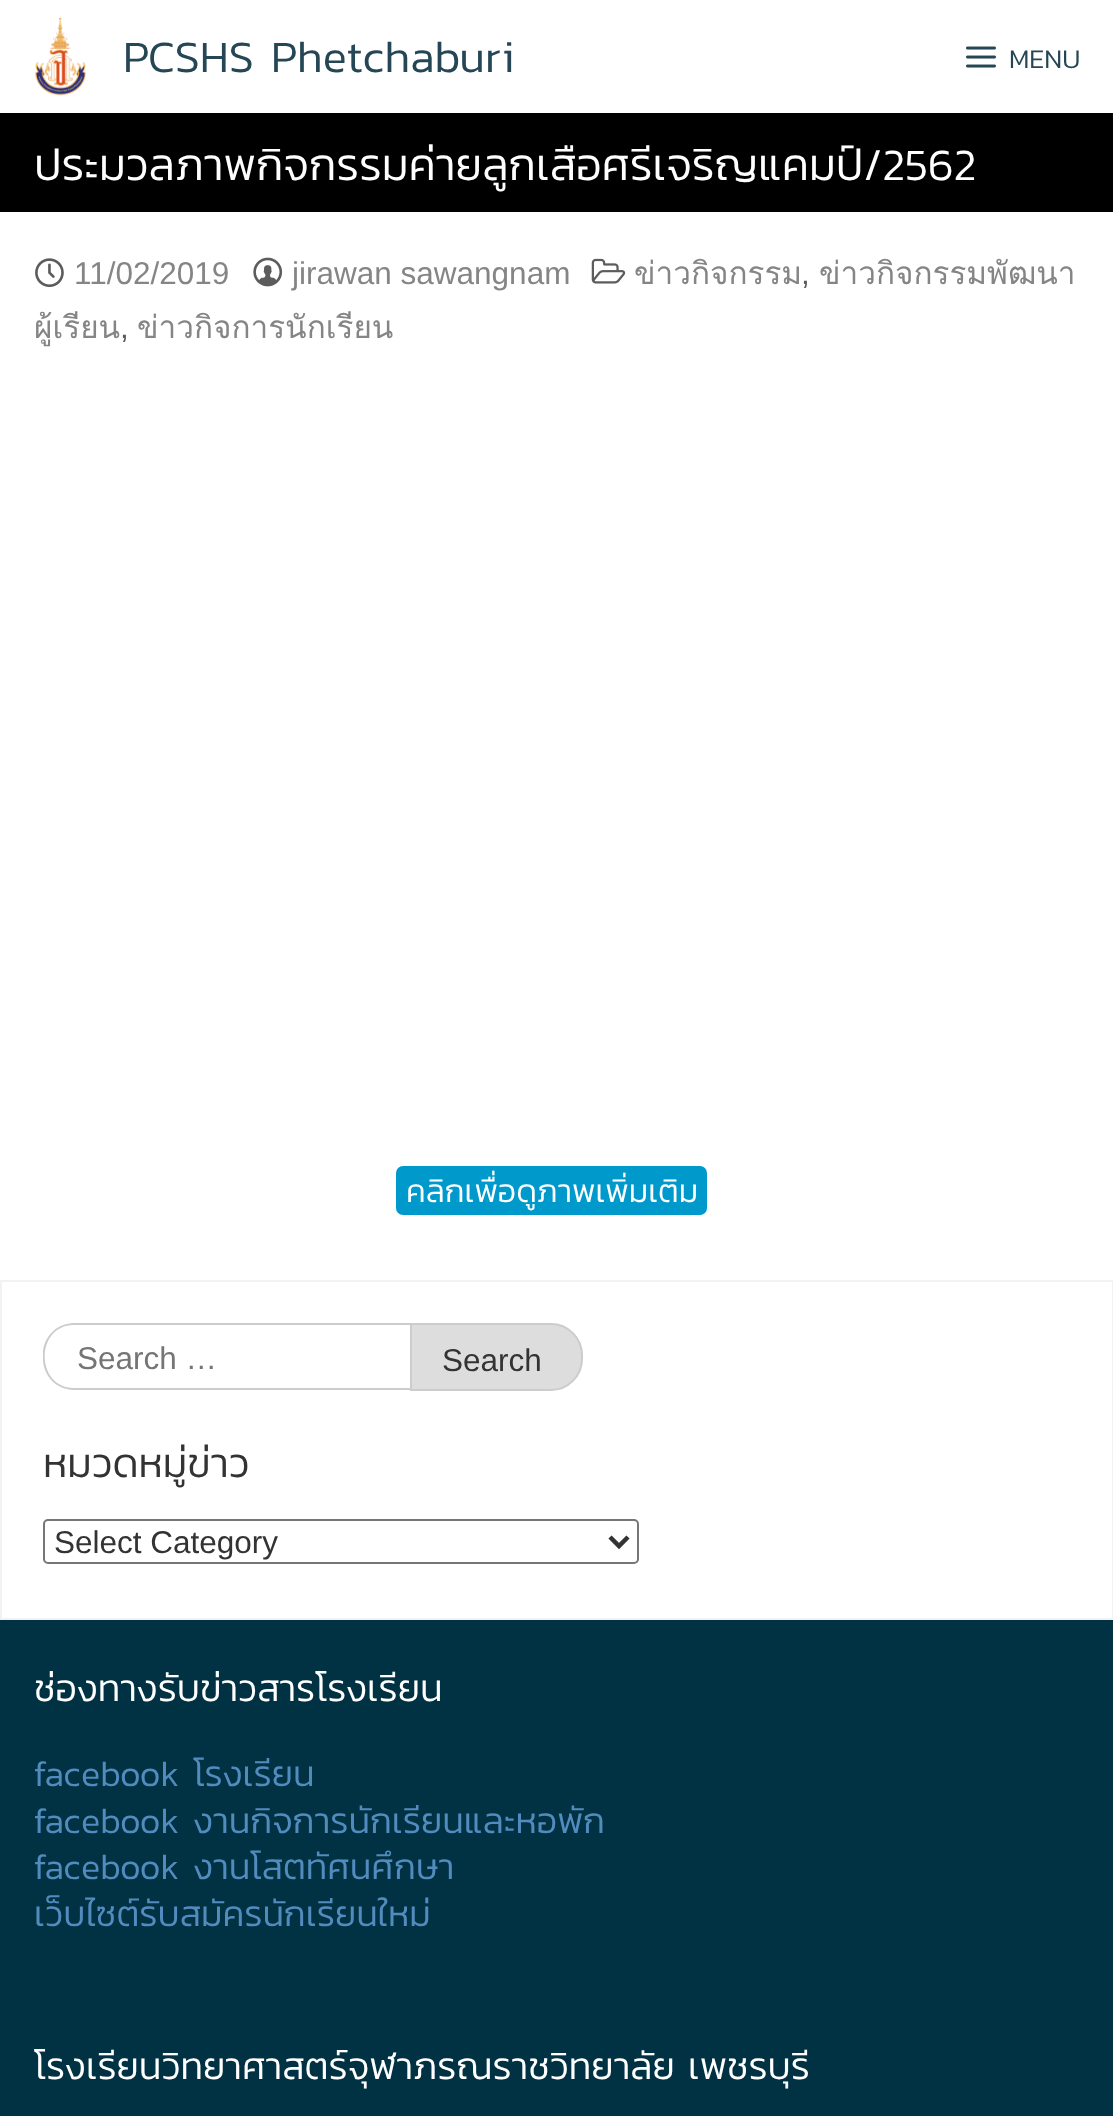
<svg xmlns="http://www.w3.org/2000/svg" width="1113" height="2116">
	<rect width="100%" height="100%" fill="#FFFFFF" />
	<rect x="0" y="113" width="1113" height="99" fill="#000000" />
	<rect x="0" y="0" width="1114" height="113" fill="#000000" fill-opacity="0.4" filter="blur(1px)" />
	<rect x="0" y="0" width="1113" height="113" fill="#FFFFFF" />
	<image x="35" y="17" width="52" height="79" href="assets/img1.png" />
	<text x="123" y="72" font-family="Kanit" font-size="45" font-weight="300" fill="#254655">PCSHS Phetchaburi</text>
	<image x="966" y="46" width="30" height="22" href="assets/img2.png" />
	<text x="1009" y="68" font-family="Kanit" font-size="27" font-weight="300" fill="#254655">MENU</text>
	<text x="34" y="180" font-family="Kanit" font-size="45" font-weight="300" fill="#FFFFFF">ประมวลภาพกิจกรรมค่ายลูกเสือศรีเจริญแคมป์/2562</text>
	<image x="35" y="258" width="29" height="30" href="assets/img3.png" />
	<text x="74" y="284" font-family="Liberation Sans" font-size="31.5" fill="#858585">11/02/2019</text>
	<image x="253" y="257" width="30" height="30" href="assets/img4.png" />
	<text x="292" y="284" font-family="Liberation Sans" font-size="31.5" fill="#858585">jirawan sawangnam</text>
	<image x="591" y="258" width="35" height="26" href="assets/img5.png" />
	<text x="634" y="284" font-family="Loma" font-size="31.5" fill="#858585">ข่าวกิจกรรม</text>
	<text x="801" y="284" font-family="Liberation Sans" font-size="31.5" fill="#5C5C5C">,</text>
	<g font-family="Loma" font-size="31.5" fill="#858585">
		<text x="819" y="284">ข่าวกิจกรรมพัฒนา</text>
		<text x="34" y="338">ผู้เรียน</text>
	</g>
	<text x="120" y="338" font-family="Liberation Sans" font-size="31.5" fill="#5C5C5C">,</text>
	<text x="137" y="338" font-family="Loma" font-size="31.5" fill="#858585">ข่าวกิจการนักเรียน</text>
	<rect x="396" y="1166" width="311" height="49" rx="7" fill="#0099CC" />
	<text x="406" y="1202" font-family="Kanit" font-size="32.5" font-weight="300" fill="#FFFFFF">คลิกเพื่อดูภาพเพิ่มเติม</text>
	<rect x="1" y="1281" width="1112" height="338" fill="none" stroke="#F2F2F2" stroke-width="2" />
	<path d="M74 1323H410V1390H74C57 1390 43 1376 43 1359V1354C43 1337 57 1323 74 1323ZM74 1325H410V1388H74C35 1388 35 1325 74 1325Z" fill="#CCCCCC" fill-rule="evenodd" />
	<text x="77" y="1369" font-family="Liberation Sans" font-size="31.5" fill="#757575">Search …</text>
	<path d="M411 1324H551C568 1324 582 1338 582 1355V1359C582 1376 568 1390 551 1390H411Z" fill="#DDDDDD" stroke="#CCCCCC" stroke-width="2" />
	<text x="442" y="1371" font-family="Liberation Sans" font-size="31.5" fill="#333333">Search</text>
	<text x="43" y="1477" font-family="Kanit" font-size="41" font-weight="300" fill="#333333">หมวดหมู่ข่าว</text>
	<rect x="44" y="1520" width="594" height="43" rx="4" fill="none" stroke="#767676" stroke-width="2" />
	<path d="M610 1537L619 1546L628 1537" fill="none" stroke="#333333" stroke-width="4.5" />
	<text x="54" y="1553" font-family="Liberation Sans" font-size="31.5" fill="#333333">Select Category</text>
	<rect x="0" y="1620" width="1113" height="496" fill="#013243" />
	<text x="34" y="1701" font-family="Kanit" font-size="37.8" font-weight="300" fill="#FFFFFF">ช่องทางรับข่าวสารโรงเรียน</text>
	<g font-family="Kanit" font-size="36" font-weight="300" fill="#528CBF">
		<text x="34" y="1786">facebook โรงเรียน</text>
		<text x="34" y="1833">facebook งานกิจการนักเรียนและหอพัก</text>
		<text x="34" y="1879">facebook งานโสตทัศนศึกษา</text>
		<text x="34" y="1926">เว็บไซต์รับสมัครนักเรียนใหม่</text>
	</g>
	<text x="34" y="2079" word-spacing="-1" font-family="Kanit" font-size="37.8" font-weight="300" fill="#FFFFFF">โรงเรียนวิทยาศาสตร์จุฬาภรณราชวิทยาลัย เพชรบุรี</text>
</svg>
